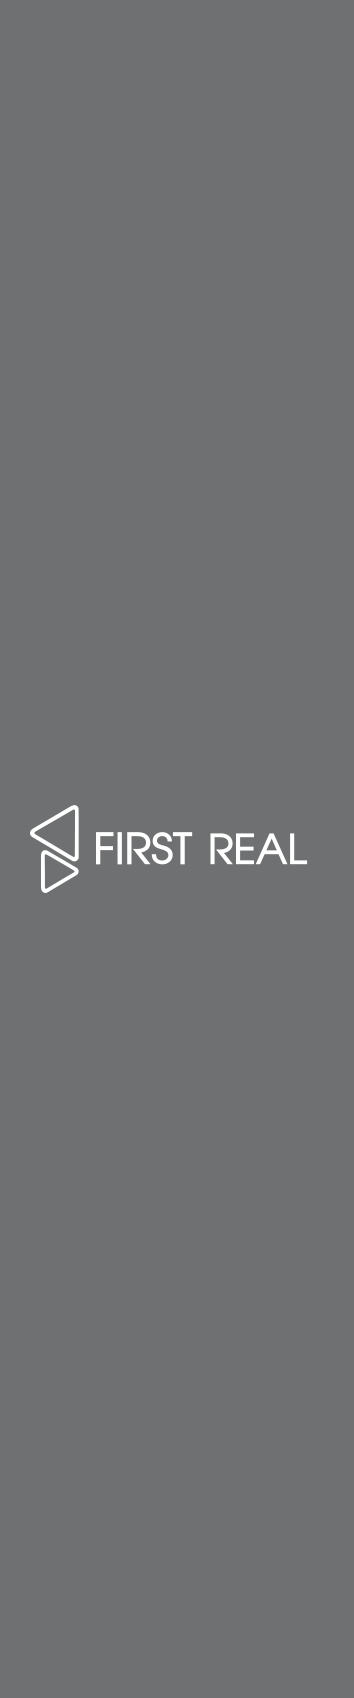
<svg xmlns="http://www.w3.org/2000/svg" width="354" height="1698">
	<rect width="100%" height="100%" fill="#6F7071" />
	<image x="30" y="805" width="49" height="57" href="assets/img1.png" />
	<image x="40" y="850" width="39" height="43" href="assets/img2.png" />
	<image x="96" y="832" width="97" height="33" href="assets/img3.png" />
	<image x="210" y="833" width="98" height="32" href="assets/img4.png" />
</svg>
